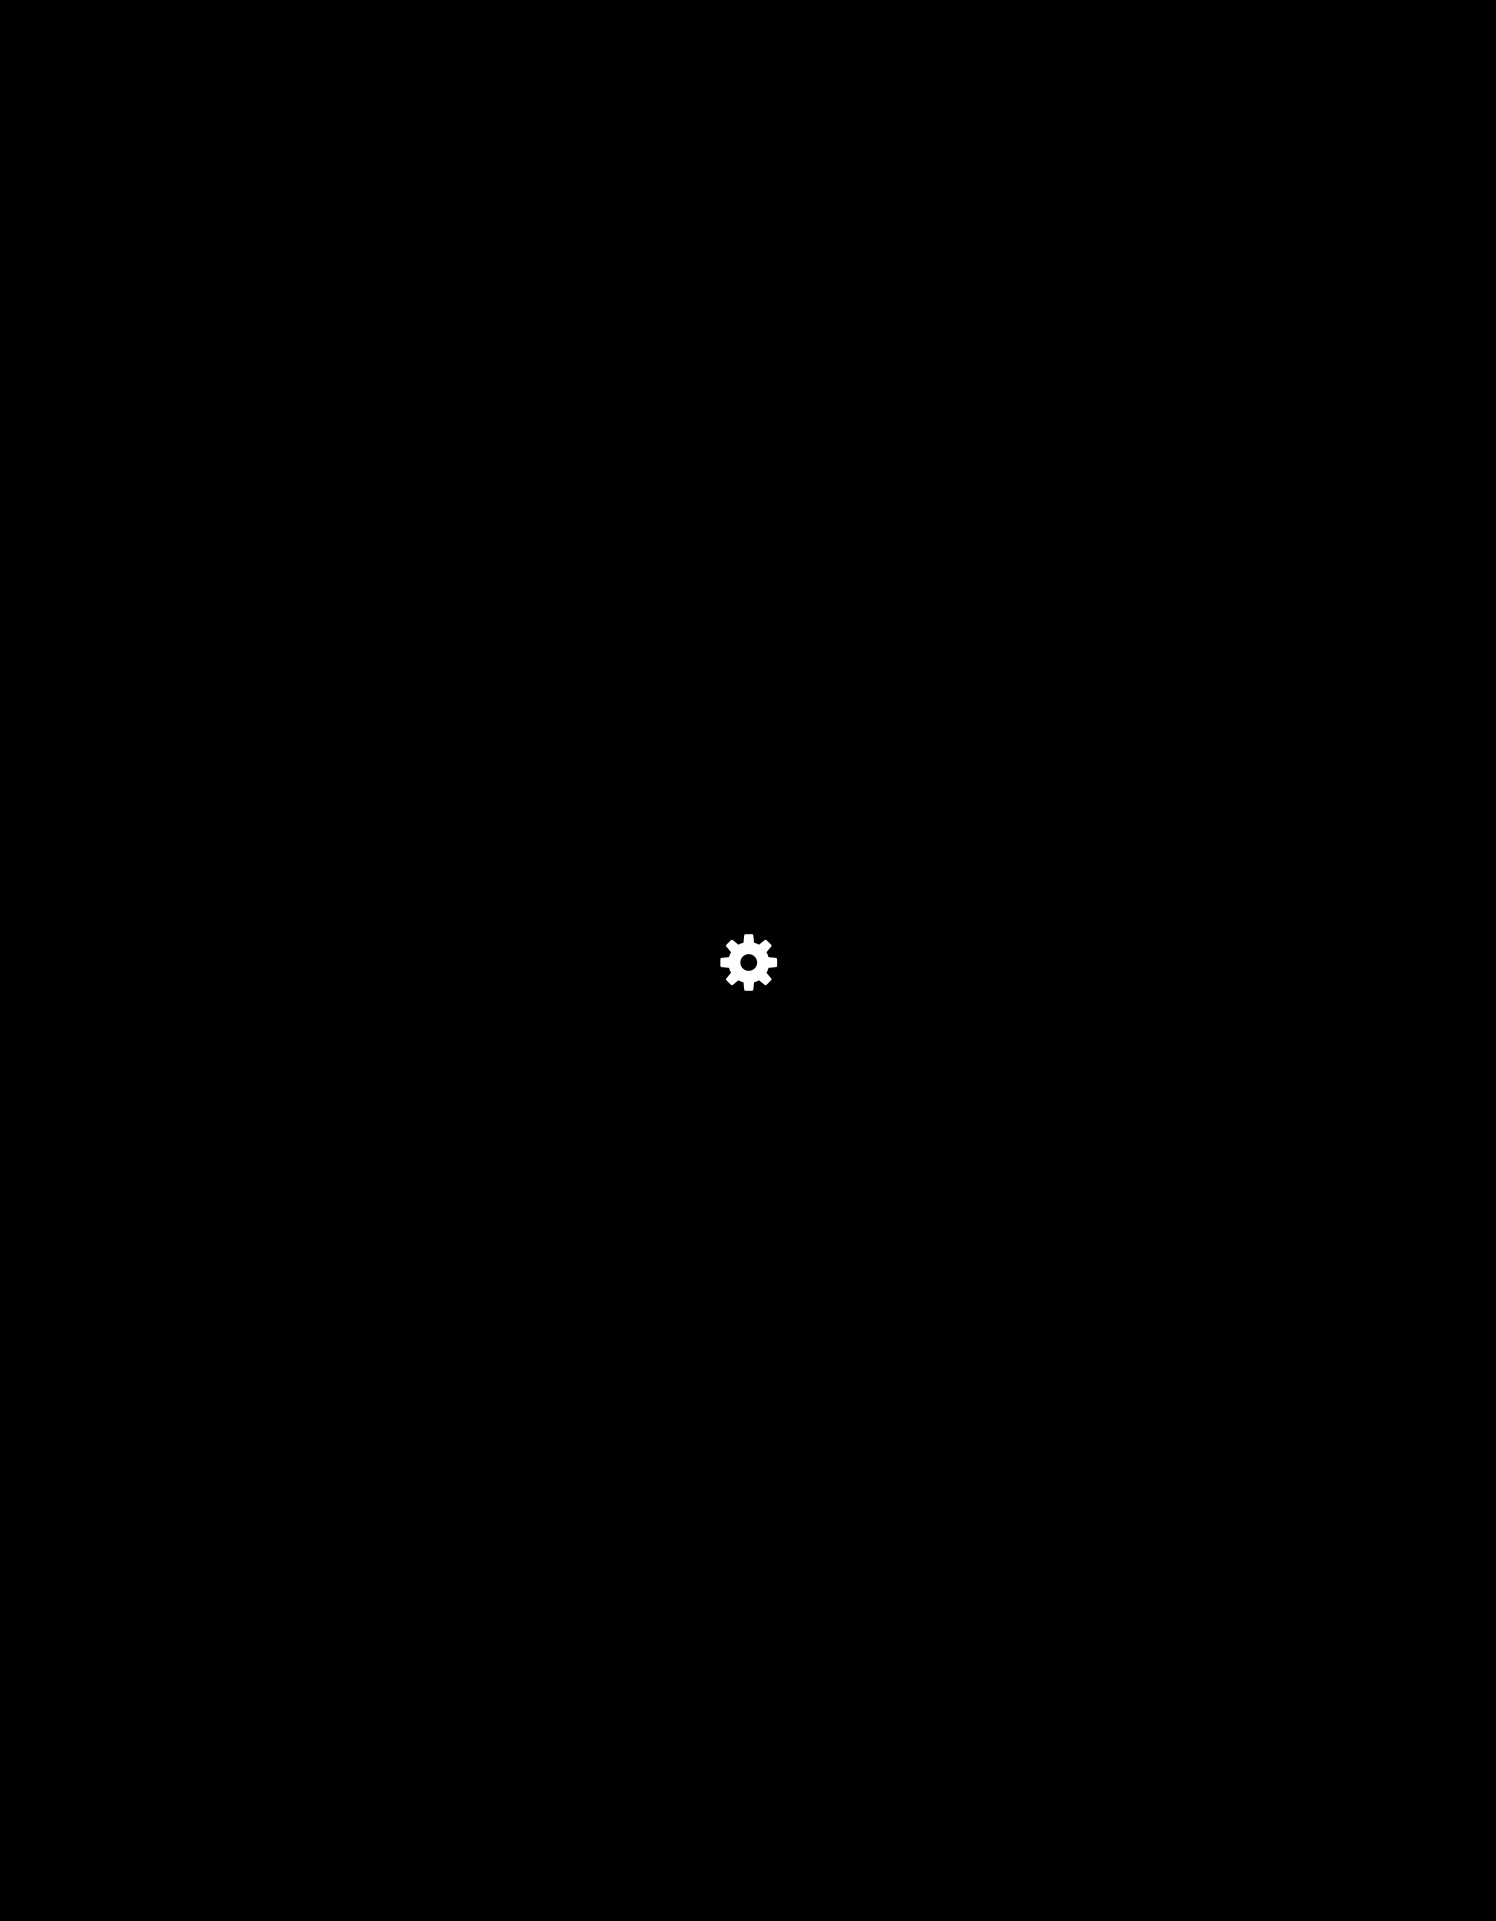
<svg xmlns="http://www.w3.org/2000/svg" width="1496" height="1921">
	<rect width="100%" height="100%" fill="#000000" />
	<image x="720" y="934" width="58" height="57" href="assets/img1.png" />
</svg>
